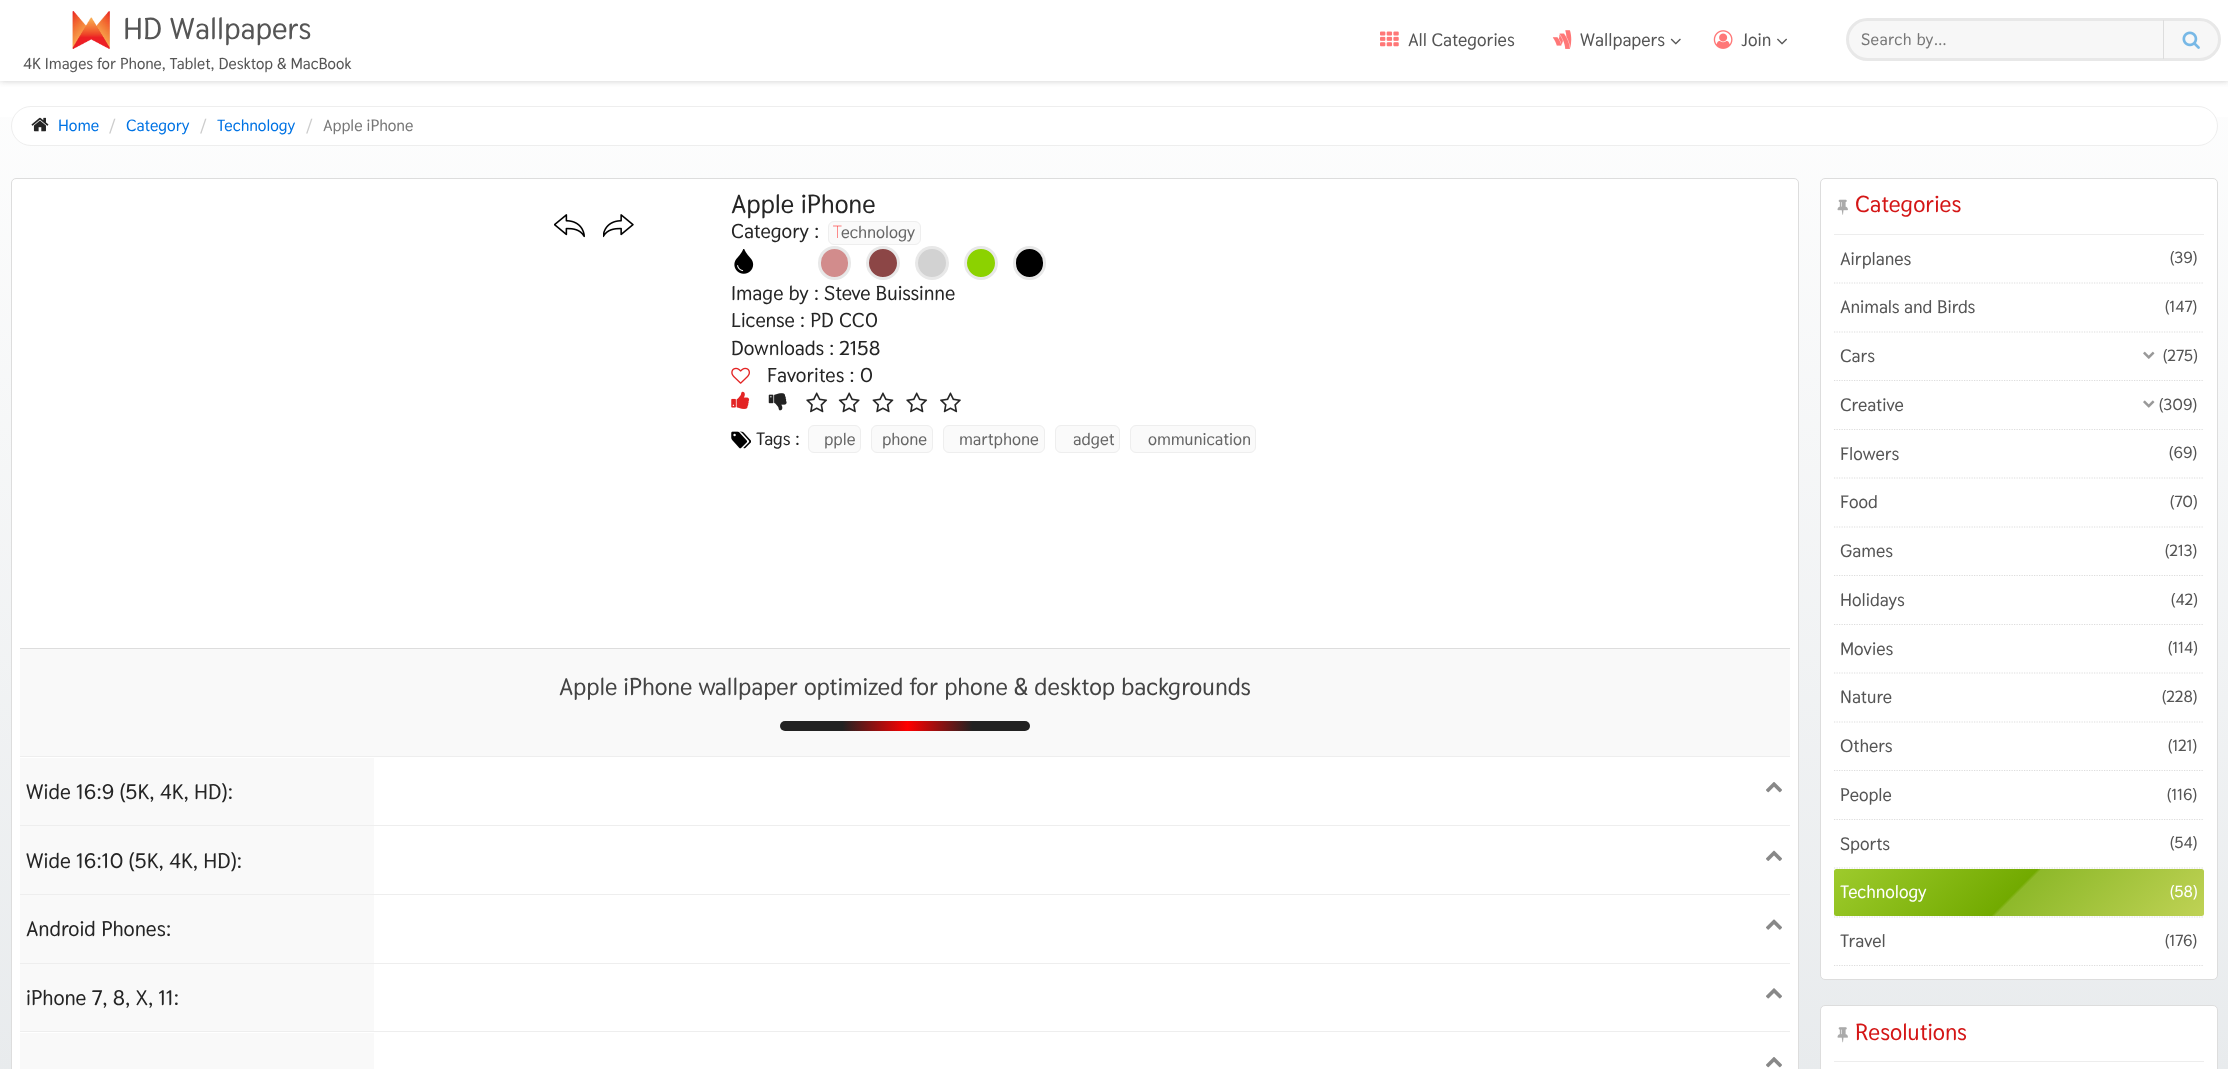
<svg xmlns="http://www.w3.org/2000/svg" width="2228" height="1069">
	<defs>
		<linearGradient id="g1" gradientUnits="userSpaceOnUse" x1="1114" y1="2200" x2="1114" y2="0"><stop offset="0" stop-color="#D0D6DA" /><stop offset="1" stop-color="#FFFFFF" /></linearGradient>
		<clipPath id="clip1"><rect x="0" y="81" width="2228" height="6" /></clipPath>
		<linearGradient id="g2" gradientUnits="userSpaceOnUse" x1="780" y1="726" x2="1030" y2="726"><stop offset="0.25" stop-color="#222222" /><stop offset="0.51" stop-color="#FF0000" /><stop offset="0.77" stop-color="#222222" /></linearGradient>
		<linearGradient id="g3" gradientUnits="userSpaceOnUse" x1="1914" y1="788" x2="2123" y2="997"><stop offset="0" stop-color="#9ECB2D" /><stop offset="0.49" stop-color="#72AA00" /><stop offset="0.5" stop-color="#8EB92A" /><stop offset="1" stop-color="#BFD255" /></linearGradient>
	</defs>
	<rect width="100%" height="100%" fill="#FFFFFF" />
	<rect x="0" y="117" width="2228" height="952" fill="url(#g1)" />
	<g clip-path="url(#clip1)">
		<rect x="0" y="0" width="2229" height="81" fill="#CCCCCC" filter="blur(3px)" />
	</g>
	<image x="72" y="11" width="38" height="38" href="assets/img1.png" />
	<text x="123" y="39" font-family="Thasadith" font-size="30" font-weight="700" fill="#555555">HD Wallpapers</text>
	<text x="23" y="69" font-family="Thasadith" font-size="15.8" font-weight="700" fill="#555555">4K Images for Phone, Tablet, Desktop &amp; MacBook</text>
	<image x="1380" y="31" width="19" height="16" href="assets/img2.png" />
	<text x="1408" y="46" font-family="Thasadith" font-size="18" font-weight="700" fill="#555555">All Categories</text>
	<image x="1552" y="30" width="20" height="19" href="assets/img3.png" />
	<text x="1580" y="46" font-family="Thasadith" font-size="18" font-weight="700" fill="#555555">Wallpapers</text>
	<image x="1670" y="38" width="11" height="7" href="assets/img4.png" />
	<image x="1713" y="30" width="20" height="19" href="assets/img5.png" />
	<text x="1741" y="46" font-family="Thasadith" font-size="18" font-weight="700" fill="#555555">Join</text>
	<image x="1777" y="38" width="10" height="7" href="assets/img6.png" />
	<rect x="1847.5" y="19.5" width="372" height="40" rx="20" fill="#F7F7F7" stroke="#E8E8E8" stroke-width="3" />
	<text x="1861" y="45" font-family="Thasadith" font-size="16.5" font-weight="700" letter-spacing="0.4" fill="#777777">Search by...</text>
	<rect x="2163" y="20" width="1" height="39" fill="#DDDDDD" />
	<image x="2182" y="31" width="18" height="18" href="assets/img7.png" />
	<rect x="11.5" y="106.5" width="2206" height="39" rx="19.5" fill="#FFFFFF" stroke="#EEEEEE" />
	<image x="31" y="117" width="18" height="15" href="assets/img8.png" />
	<text x="58" y="131" font-family="Thasadith" font-size="16.25" font-weight="700" fill="#0073E4">Home</text>
	<text x="109" y="131" font-family="Thasadith" font-size="16.25" font-weight="700" fill="#CCCCCC">/</text>
	<text x="126" y="131" font-family="Thasadith" font-size="16.25" font-weight="700" fill="#0073E4">Category</text>
	<text x="200" y="131" font-family="Thasadith" font-size="16.25" font-weight="700" fill="#CCCCCC">/</text>
	<text x="217" y="131" font-family="Thasadith" font-size="16.25" font-weight="700" fill="#0073E4">Technology</text>
	<text x="306" y="131" font-family="Thasadith" font-size="16.25" font-weight="700" fill="#CCCCCC">/</text>
	<text x="323" y="131" font-family="Thasadith" font-size="16.25" font-weight="700" fill="#777777">Apple iPhone</text>
	<rect x="11.5" y="178.5" width="1787" height="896" rx="4.5" fill="#FFFFFF" stroke="#DDDDDD" />
	<image x="554" y="214" width="31" height="24" href="assets/img9.png" />
	<image x="603" y="214" width="31" height="24" href="assets/img10.png" />
	<text x="731" y="213" font-family="Thasadith" font-size="26" font-weight="700" fill="#252525">Apple iPhone</text>
	<text x="731" y="238" font-family="Thasadith" font-size="20" font-weight="700" fill="#252525">Category :</text>
	<rect x="828.5" y="221.5" width="92" height="23" rx="5.5" fill="#FAFAFA" stroke="#EEEEEE" />
	<text x="833" y="238" font-family="Noto Sans" font-size="17" font-weight="100" fill="#FF0000">T</text>
	<text x="841" y="238" font-family="Thasadith" font-size="17" font-weight="700" fill="#666666">echnology</text>
	<image x="734" y="249" width="20" height="25" href="assets/img11.png" />
	<rect x="819.5" y="247.5" width="30" height="31" rx="15" fill="#D28C8C" stroke="#E8E8E8" stroke-width="3" />
	<circle cx="883" cy="263" r="15.5" fill="#8C4646" stroke="#E8E8E8" stroke-width="3" />
	<circle cx="932" cy="263" r="15.5" fill="#D2D2D2" stroke="#E8E8E8" stroke-width="3" />
	<circle cx="981" cy="263" r="15.5" fill="#8CD200" stroke="#E8E8E8" stroke-width="3" />
	<rect x="1014.5" y="247.5" width="30" height="31" rx="15" fill="#000000" stroke="#E8E8E8" stroke-width="3" />
	<g font-family="Thasadith" font-size="20" font-weight="700" fill="#252525">
		<text x="731" y="300">Image by : Steve Buissinne</text>
		<text x="731" y="327">License : PD CC0</text>
		<text x="731" y="355">Downloads : 2158</text>
	</g>
	<image x="731" y="367" width="19" height="17" href="assets/img12.png" />
	<text x="767" y="382" font-family="Thasadith" font-size="20" font-weight="700" fill="#252525">Favorites : 0</text>
	<image x="731" y="391" width="19" height="18" href="assets/img13.png" />
	<image x="768" y="393" width="19" height="18" href="assets/img14.png" />
	<image x="806" y="392" width="22" height="21" href="assets/img15.png" />
	<image x="838" y="392" width="22" height="21" href="assets/img16.png" />
	<image x="872" y="392" width="22" height="21" href="assets/img17.png" />
	<image x="906" y="392" width="22" height="21" href="assets/img15.png" />
	<image x="940" y="392" width="21" height="21" href="assets/img18.png" />
	<image x="731" y="431" width="20" height="18" href="assets/img19.png" />
	<text x="756" y="445" font-family="Thasadith" font-size="18" font-weight="700" fill="#252525">Tags :</text>
	<rect x="808.5" y="425.5" width="52" height="27" rx="5.5" fill="#FAFAFA" stroke="#EEEEEE" />
	<text x="824" y="445" font-family="Thasadith" font-size="17" font-weight="700" fill="#666666">pple</text>
	<rect x="871.5" y="425.5" width="61" height="27" rx="5.5" fill="#FAFAFA" stroke="#EEEEEE" />
	<text x="882" y="445" font-family="Thasadith" font-size="17" font-weight="700" fill="#666666">phone</text>
	<rect x="943.5" y="425.5" width="101" height="27" rx="5.5" fill="#FAFAFA" stroke="#EEEEEE" />
	<text x="959" y="445" font-family="Thasadith" font-size="17" font-weight="700" fill="#666666">martphone</text>
	<rect x="1055.5" y="425.5" width="64" height="27" rx="5.5" fill="#FAFAFA" stroke="#EEEEEE" />
	<text x="1073" y="445" font-family="Thasadith" font-size="17" font-weight="700" fill="#666666">adget</text>
	<rect x="1130.5" y="425.5" width="125" height="27" rx="5.5" fill="#FAFAFA" stroke="#EEEEEE" />
	<text x="1148" y="445" font-family="Thasadith" font-size="17" font-weight="700" fill="#666666">ommunication</text>
	<rect x="20" y="649" width="1770" height="107" fill="#F9F9F9" />
	<rect x="20" y="648" width="1770" height="1" fill="#DDDDDD" />
	<text x="559" y="695" font-family="Thasadith" font-size="24" font-weight="700" fill="#444444">Apple iPhone wallpaper optimized for phone &amp; desktop backgrounds</text>
	<rect x="780" y="721" width="250" height="10" rx="5" fill="url(#g2)" />
	<rect x="20" y="756" width="1770" height="1" fill="#EEEEEE" />
	<rect x="20" y="758" width="354" height="67" fill="#F9F9F9" />
	<text x="26" y="799" font-family="Thasadith" font-size="21" font-weight="700" fill="#252525">Wide 16:9 (5K, 4K, HD):</text>
	<image x="1766" y="782" width="16" height="11" href="assets/img20.png" />
	<rect x="20" y="825" width="1770" height="1" fill="#EEEEEE" />
	<rect x="20" y="826" width="354" height="68" fill="#F9F9F9" />
	<text x="26" y="868" font-family="Thasadith" font-size="21" font-weight="700" fill="#252525">Wide 16:10 (5K, 4K, HD):</text>
	<image x="1766" y="850" width="16" height="11" href="assets/img21.png" />
	<rect x="20" y="894" width="1770" height="1" fill="#EEEEEE" />
	<rect x="20" y="895" width="354" height="68" fill="#F9F9F9" />
	<text x="26" y="936" font-family="Thasadith" font-size="21" font-weight="700" fill="#252525">Android Phones:</text>
	<image x="1766" y="919" width="16" height="11" href="assets/img22.png" />
	<rect x="20" y="963" width="1770" height="1" fill="#EEEEEE" />
	<rect x="20" y="964" width="354" height="67" fill="#F9F9F9" />
	<text x="26" y="1005" font-family="Thasadith" font-size="21" font-weight="700" fill="#252525">iPhone 7, 8, X, 11:</text>
	<image x="1766" y="988" width="16" height="11" href="assets/img23.png" />
	<rect x="20" y="1031" width="1770" height="1" fill="#EEEEEE" />
	<rect x="20" y="1033" width="354" height="36" fill="#F9F9F9" />
	<image x="1766" y="1057" width="16" height="11" href="assets/img20.png" />
	<rect x="1820.5" y="178.5" width="397" height="801" rx="4.5" fill="#FFFFFF" stroke="#DDDDDD" />
	<rect x="1834" y="234" width="370" height="1" fill="#EDEDED" />
	<image x="1837" y="199" width="11" height="16" href="assets/img24.png" />
	<text x="1855" y="212" font-family="Thasadith" font-size="23" font-weight="700" fill="#D41616">Categories</text>
	<path d="M1834 283H2204" fill="none" stroke="#DDDDDD" stroke-width="1.2" stroke-dasharray="1.25 1.25" />
	<text x="1840" y="265" font-family="Thasadith" font-size="18" font-weight="700" fill="#555555">Airplanes</text>
	<text x="2170" y="263" font-family="Thasadith" font-size="16" font-weight="700" fill="#555555">(39)</text>
	<path d="M1834 332H2204" fill="none" stroke="#DDDDDD" stroke-width="1.2" stroke-dasharray="1.25 1.25" />
	<text x="1840" y="313" font-family="Thasadith" font-size="18" font-weight="700" fill="#555555">Animals and Birds</text>
	<text x="2165" y="312" font-family="Thasadith" font-size="16" font-weight="700" fill="#555555">(147)</text>
	<path d="M1834 380.5H2204" fill="none" stroke="#DDDDDD" stroke-width="1.2" stroke-dasharray="1.25 1.25" />
	<text x="1840" y="362" font-family="Thasadith" font-size="18" font-weight="700" fill="#555555">Cars</text>
	<image x="2143" y="351" width="12" height="8" href="assets/img25.png" />
	<text x="2163" y="361" font-family="Thasadith" font-size="16" font-weight="700" fill="#555555">(275)</text>
	<path d="M1834 429.5H2204" fill="none" stroke="#DDDDDD" stroke-width="1.2" stroke-dasharray="1.25 1.25" />
	<text x="1840" y="411" font-family="Thasadith" font-size="18" font-weight="700" fill="#555555">Creative</text>
	<image x="2143" y="400" width="12" height="8" href="assets/img26.png" />
	<text x="2159" y="410" font-family="Thasadith" font-size="16" font-weight="700" fill="#555555">(309)</text>
	<path d="M1834 478H2204" fill="none" stroke="#DDDDDD" stroke-width="1.2" stroke-dasharray="1.25 1.25" />
	<text x="1840" y="460" font-family="Thasadith" font-size="18" font-weight="700" fill="#555555">Flowers</text>
	<text x="2169" y="458" font-family="Thasadith" font-size="16" font-weight="700" fill="#555555">(69)</text>
	<path d="M1834 527H2204" fill="none" stroke="#DDDDDD" stroke-width="1.2" stroke-dasharray="1.25 1.25" />
	<text x="1840" y="508" font-family="Thasadith" font-size="18" font-weight="700" fill="#555555">Food</text>
	<text x="2170" y="507" font-family="Thasadith" font-size="16" font-weight="700" fill="#555555">(70)</text>
	<path d="M1834 575.5H2204" fill="none" stroke="#DDDDDD" stroke-width="1.2" stroke-dasharray="1.25 1.25" />
	<text x="1840" y="557" font-family="Thasadith" font-size="18" font-weight="700" fill="#555555">Games</text>
	<text x="2165" y="556" font-family="Thasadith" font-size="16" font-weight="700" fill="#555555">(213)</text>
	<path d="M1834 624.5H2204" fill="none" stroke="#DDDDDD" stroke-width="1.2" stroke-dasharray="1.25 1.25" />
	<text x="1840" y="606" font-family="Thasadith" font-size="18" font-weight="700" fill="#555555">Holidays</text>
	<text x="2171" y="605" font-family="Thasadith" font-size="16" font-weight="700" fill="#555555">(42)</text>
	<path d="M1834 673H2204" fill="none" stroke="#DDDDDD" stroke-width="1.2" stroke-dasharray="1.25 1.25" />
	<text x="1840" y="655" font-family="Thasadith" font-size="18" font-weight="700" fill="#555555">Movies</text>
	<text x="2168" y="653" font-family="Thasadith" font-size="16" font-weight="700" fill="#555555">(114)</text>
	<path d="M1834 722H2204" fill="none" stroke="#DDDDDD" stroke-width="1.2" stroke-dasharray="1.25 1.25" />
	<text x="1840" y="703" font-family="Thasadith" font-size="18" font-weight="700" fill="#555555">Nature</text>
	<text x="2162" y="702" font-family="Thasadith" font-size="16" font-weight="700" fill="#555555">(228)</text>
	<path d="M1834 770.5H2204" fill="none" stroke="#DDDDDD" stroke-width="1.2" stroke-dasharray="1.25 1.25" />
	<text x="1840" y="752" font-family="Thasadith" font-size="18" font-weight="700" fill="#555555">Others</text>
	<text x="2168" y="751" font-family="Thasadith" font-size="16" font-weight="700" fill="#555555">(121)</text>
	<path d="M1834 819.5H2204" fill="none" stroke="#DDDDDD" stroke-width="1.2" stroke-dasharray="1.25 1.25" />
	<text x="1840" y="801" font-family="Thasadith" font-size="18" font-weight="700" fill="#555555">People</text>
	<text x="2167" y="800" font-family="Thasadith" font-size="16" font-weight="700" fill="#555555">(116)</text>
	<path d="M1834 868H2204" fill="none" stroke="#DDDDDD" stroke-width="1.2" stroke-dasharray="1.25 1.25" />
	<text x="1840" y="850" font-family="Thasadith" font-size="18" font-weight="700" fill="#555555">Sports</text>
	<text x="2170" y="848" font-family="Thasadith" font-size="16" font-weight="700" fill="#555555">(54)</text>
	<path d="M1834 917H2204" fill="none" stroke="#DDDDDD" stroke-width="1.2" stroke-dasharray="1.25 1.25" />
	<rect x="1834" y="869" width="370" height="47" rx="2.5" fill="url(#g3)" />
	<text x="1840" y="898" font-family="Thasadith" font-size="18" font-weight="700" fill="#FFFFFF">Technology</text>
	<text x="2170" y="897" font-family="Thasadith" font-size="16" font-weight="700" fill="#FFFFFF">(58)</text>
	<path d="M1834 965.5H2204" fill="none" stroke="#DDDDDD" stroke-width="1.2" stroke-dasharray="1.25 1.25" />
	<text x="1840" y="947" font-family="Thasadith" font-size="18" font-weight="700" fill="#555555">Travel</text>
	<text x="2165" y="946" font-family="Thasadith" font-size="16" font-weight="700" fill="#555555">(176)</text>
	<rect x="1820.5" y="1005.5" width="397" height="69" rx="4.5" fill="#FFFFFF" stroke="#DDDDDD" />
	<rect x="1834" y="1061" width="370" height="1" fill="#EDEDED" />
	<image x="1837" y="1027" width="11" height="16" href="assets/img27.png" />
	<text x="1855" y="1040" font-family="Thasadith" font-size="23" font-weight="700" fill="#D41616">Resolutions</text>
</svg>
